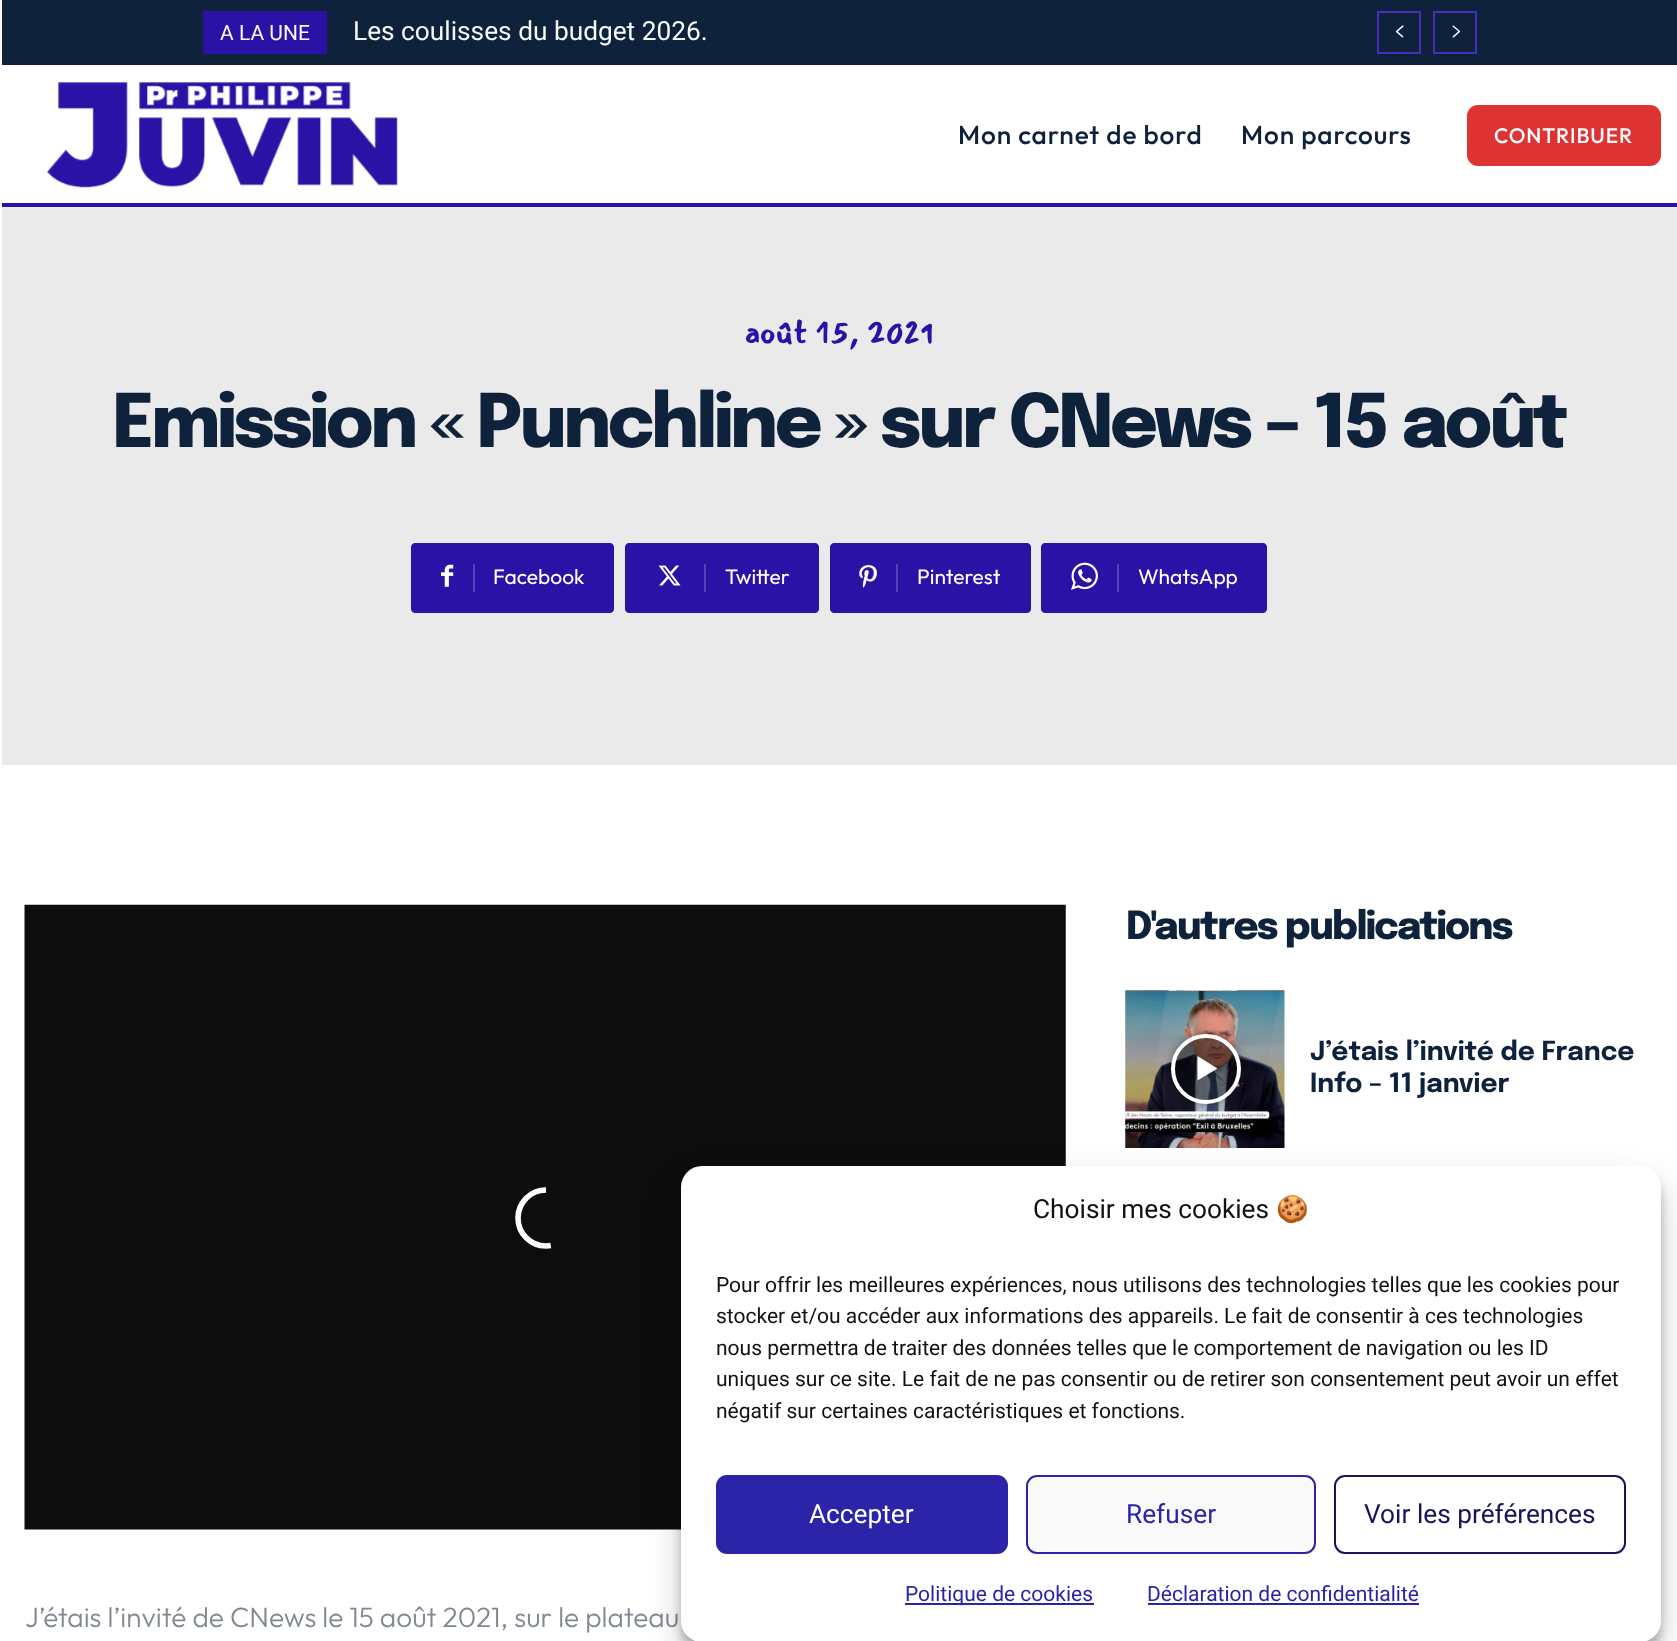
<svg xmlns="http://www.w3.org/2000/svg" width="1677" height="1641">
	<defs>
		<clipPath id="clip1"><path d="M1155 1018H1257V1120H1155ZM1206 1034C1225.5 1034 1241 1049.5 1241 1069C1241 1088.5 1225.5 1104 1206 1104C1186.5 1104 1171 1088.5 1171 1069C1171 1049.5 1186.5 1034 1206 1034Z" clip-rule="evenodd" /></clipPath>
	</defs>
	<rect width="100%" height="100%" fill="#FFFFFF" />
	<rect x="2" y="0" width="1675" height="65" fill="#0E223B" />
	<rect x="203" y="11" width="124" height="43" fill="#2B12A6" />
	<text x="220" y="40" font-family="Roboto" font-size="21" fill="#F7F9F9">A LA UNE</text>
	<text x="353" y="40" font-family="Roboto" font-size="26.25" fill="#F7F9F9">Les coulisses du budget 2026.</text>
	<rect x="1378" y="12" width="42" height="41" fill="none" stroke="#472FBB" stroke-width="2" />
	<image x="1395" y="25" width="9" height="13" href="assets/img1.png" />
	<rect x="1434" y="12" width="42" height="41" fill="none" stroke="#472FBB" stroke-width="2" />
	<image x="1452" y="25" width="9" height="13" href="assets/img2.png" />
	<image x="47" y="82" width="351" height="106" href="assets/img3.png" />
	<g font-family="Outfit" font-size="26.25" font-weight="500" letter-spacing="0.9" fill="#0E223B">
		<text x="958" y="144">Mon carnet de bord</text>
		<text x="1241" y="144">Mon parcours</text>
	</g>
	<rect x="1467" y="105" width="194" height="61" rx="11" fill="#DD3333" />
	<text x="1494" y="143" font-family="Outfit" font-size="21" font-weight="500" letter-spacing="0.9" fill="#FFFFFF">CONTRIBUER</text>
	<rect x="2" y="203" width="1675" height="4" fill="#2B12A6" />
	<rect x="2" y="207" width="1675" height="558" fill="#EAEAEA" />
	<text x="744" y="343" font-family="Mansalva" font-size="31.5" font-weight="700" fill="#2B12A6">août 15, 2021</text>
	<text x="112" y="447" font-family="Epilogue" font-size="73.5" font-weight="800" letter-spacing="-3.5" fill="#0E223B">Emission « Punchline » sur CNews – 15 août</text>
	<path d="M473 543H610C612 543 614 545 614 547V609C614 611 612 613 610 613H473Z" fill="#2B12A6" />
	<path d="M415 543H483V613H415C413 613 411 611 411 609V547C411 545 413 543 415 543Z" fill="#2B12A6" />
	<image x="441" y="564" width="13" height="23" href="assets/img4.png" />
	<rect x="473" y="564" width="2" height="28" fill="#5541B8" />
	<text x="493" y="584" font-family="Outfit" font-size="21" fill="#FFFFFF">Facebook</text>
	<path d="M704 543H815C817 543 819 545 819 547V609C819 611 817 613 815 613H704Z" fill="#2B12A6" />
	<path d="M629 543H714V613H629C627 613 625 611 625 609V547C625 545 627 543 629 543Z" fill="#2B12A6" />
	<image x="658" y="565" width="23" height="21" href="assets/img5.png" />
	<rect x="704" y="564" width="2" height="28" fill="#5541B8" />
	<text x="725" y="584" font-family="Outfit" font-size="21" fill="#FFFFFF">Twitter</text>
	<path d="M896 543H1027C1029 543 1031 545 1031 547V609C1031 611 1029 613 1027 613H896Z" fill="#2B12A6" />
	<path d="M834 543H907V613H834C832 613 830 611 830 609V547C830 545 832 543 834 543Z" fill="#2B12A6" />
	<image x="859" y="565" width="18" height="23" href="assets/img6.png" />
	<rect x="896" y="564" width="2" height="28" fill="#5541B8" />
	<text x="917" y="584" font-family="Outfit" font-size="21" fill="#FFFFFF">Pinterest</text>
	<path d="M1117 543H1263C1265 543 1267 545 1267 547V609C1267 611 1265 613 1263 613H1117Z" fill="#2B12A6" />
	<path d="M1045 543H1127V613H1045C1043 613 1041 611 1041 609V547C1041 545 1043 543 1045 543Z" fill="#2B12A6" />
	<image x="1071" y="562" width="27" height="28" href="assets/img7.png" />
	<rect x="1117" y="564" width="2" height="28" fill="#5541B8" />
	<text x="1138" y="584" font-family="Outfit" font-size="21" fill="#FFFFFF">WhatsApp</text>
	<text x="1126" y="939" font-family="Epilogue" font-size="38.5" font-weight="800" letter-spacing="-1.75" fill="#0E223B">D'autres publications</text>
	<image x="1125" y="990" width="160" height="158" href="assets/img8.png" />
	<g clip-path="url(#clip1)">
		<rect x="1171" y="1034" width="70" height="70" rx="35" fill="#000000" fill-opacity="0.4" filter="blur(5px)" />
	</g>
	<circle cx="1206" cy="1069" r="33" fill="#000000" fill-opacity="0.48" stroke="#FFFFFF" stroke-width="4" />
	<path d="M1197.5 1056V1080.5L1217.5 1068.5Z" fill="#FFFFFF" />
	<g font-family="Epilogue" font-size="26.25" font-weight="700" fill="#0E223B">
		<text x="1310" y="1060">J’étais l’invité de France</text>
		<text x="1310" y="1092">Info – 11 janvier</text>
	</g>
	<image x="24" y="904" width="1042" height="626" href="assets/img9.png" />
	<text x="25" y="1627" font-family="Outfit" font-size="28" font-weight="300" fill="#808893">J’étais l’invité de CNews le 15 août 2021, sur le plateau</text>
	<rect x="681" y="1176" width="980" height="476" rx="21" fill="#000000" fill-opacity="0.23" filter="blur(5px)" />
	<rect x="681" y="1183" width="980" height="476" rx="21" fill="#000000" fill-opacity="0.19" filter="blur(17.5px)" />
	<rect x="681" y="1166" width="980" height="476" rx="21" fill="#FFFFFF" />
	<text x="1033" y="1218" font-family="Roboto" font-size="26.25" fill="#111111">Choisir mes cookies</text>
	<text x="1276" y="1218" font-family="Noto Color Emoji" font-size="26.25" fill="#111111">🍪</text>
	<g font-family="Roboto" font-size="21" fill="#111111">
		<text x="716" y="1292">Pour offrir les meilleures expériences, nous utilisons des technologies telles que les cookies pour</text>
		<text x="716" y="1323">stocker et/ou accéder aux informations des appareils. Le fait de consentir à ces technologies</text>
		<text x="716" y="1355">nous permettra de traiter des données telles que le comportement de navigation ou les ID</text>
		<text x="716" y="1386">uniques sur ce site. Le fait de ne pas consentir ou de retirer son consentement peut avoir un effet</text>
		<text x="716" y="1418">négatif sur certaines caractéristiques et fonctions.</text>
	</g>
	<rect x="717" y="1476" width="290" height="77" rx="10" fill="#2B23A8" stroke="#2B23A8" stroke-width="2" />
	<text x="809" y="1523" font-family="Roboto" font-size="26.25" fill="#FFFFFF">Accepter</text>
	<rect x="1027" y="1476" width="288" height="77" rx="10" fill="#F9F9F9" stroke="#2B23A8" stroke-width="2" />
	<text x="1126" y="1523" font-family="Roboto" font-size="26.25" fill="#2B23A8">Refuser</text>
	<rect x="1335" y="1476" width="290" height="77" rx="10" fill="none" stroke="#17145A" stroke-width="2" />
	<text x="1364" y="1523" font-family="Roboto" font-size="26.25" fill="#17145A">Voir les préférences</text>
	<rect x="905" y="1603" width="189" height="2" fill="#2B23A8" />
	<g font-family="Roboto" font-size="21" fill="#2B23A8">
		<text x="905" y="1601">Politique de cookies</text>
		<text x="1147" y="1601">Déclaration de confidentialité</text>
	</g>
	<rect x="1148" y="1603" width="271" height="2" fill="#2B23A8" />
</svg>
